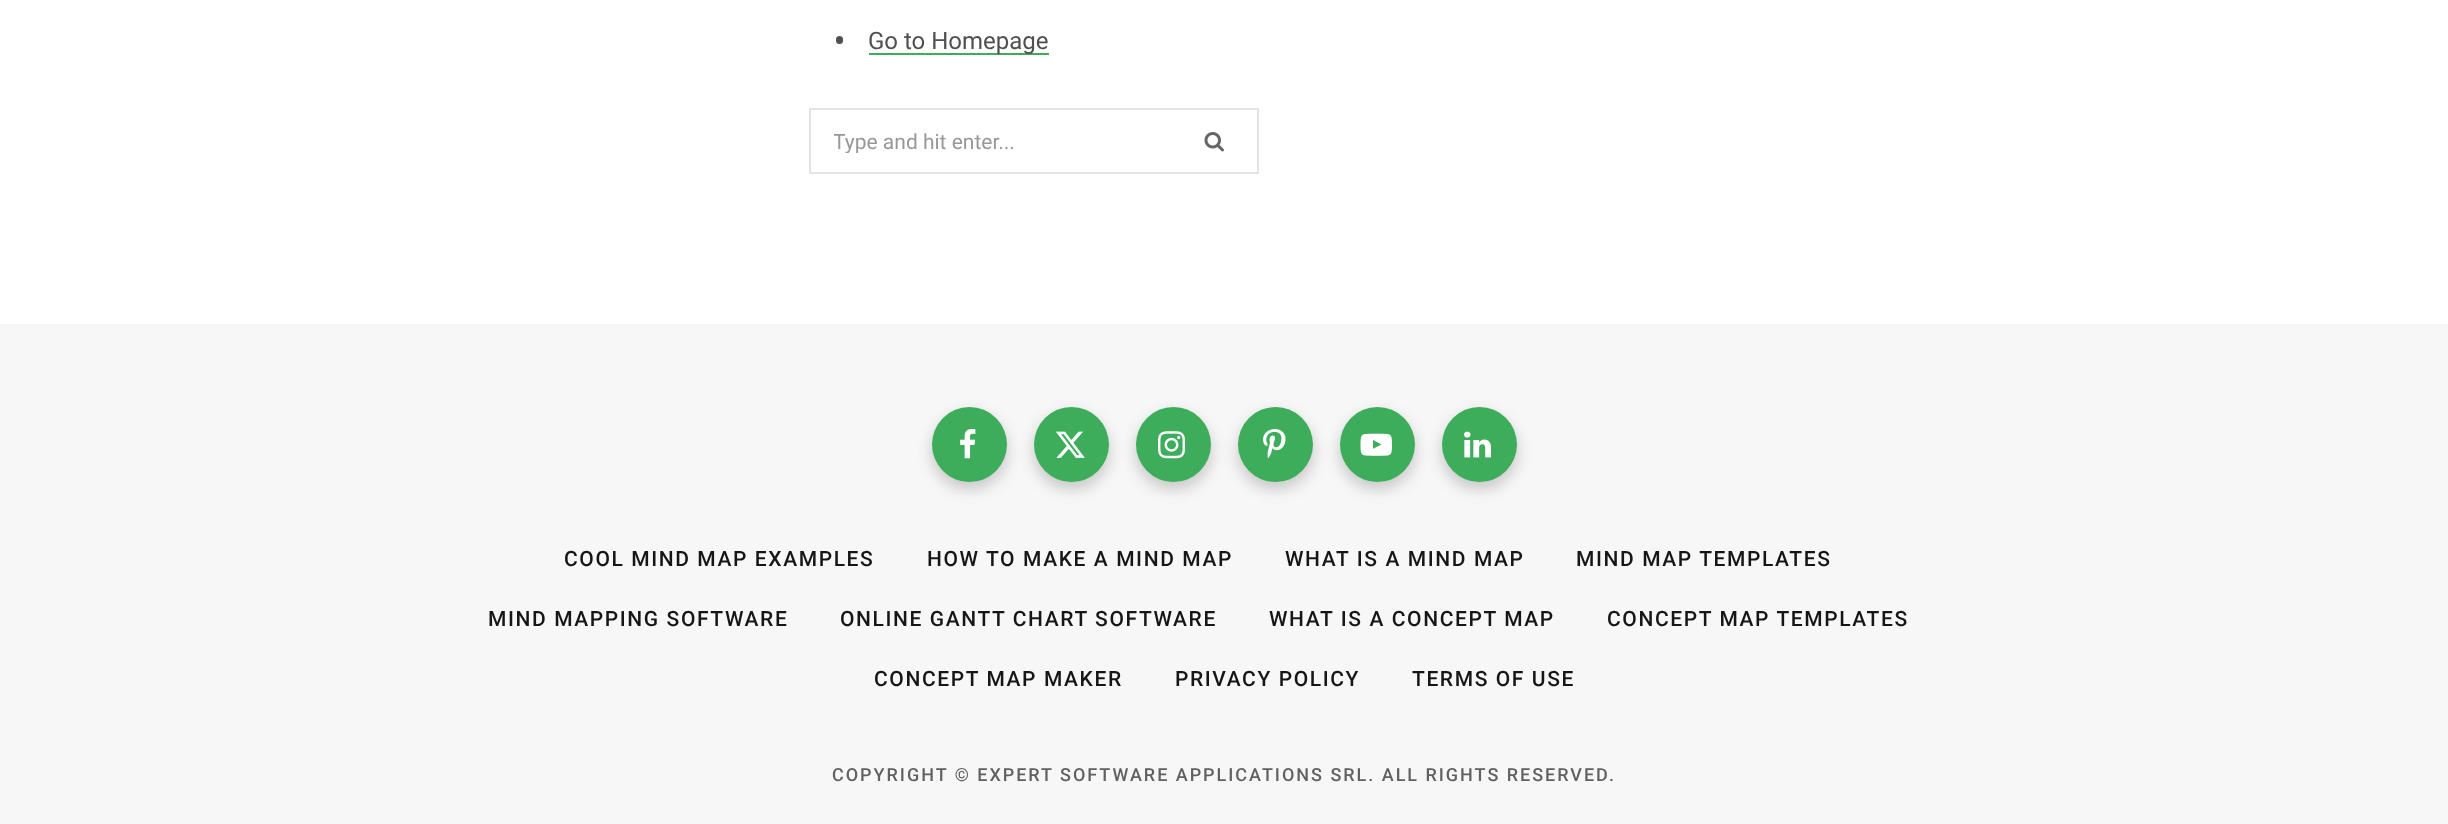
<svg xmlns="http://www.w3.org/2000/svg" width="2448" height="824">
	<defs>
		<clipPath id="clip1"><rect x="834" y="129" width="335" height="24" /></clipPath>
	</defs>
	<rect width="100%" height="100%" fill="#FFFFFF" />
	<rect x="836" y="36" width="7" height="8" rx="3.5" fill="#505050" />
	<rect x="869" y="53" width="180" height="2" fill="#3EAD5B" />
	<text x="868" y="49" font-family="Roboto" font-size="24" fill="#505050">Go to Homepage</text>
	<rect x="810" y="109" width="448" height="64" fill="none" stroke="#E4E4E4" stroke-width="2" />
	<g clip-path="url(#clip1)">
		<text x="833" y="149" font-family="Roboto" font-size="21" fill="#989898">Type and hit enter...</text>
	</g>
	<image x="1204" y="132" width="20" height="20" href="assets/img1.png" />
	<rect x="0" y="324" width="2448" height="500" fill="#F7F7F7" />
	<rect x="932" y="414" width="75" height="75" rx="37.5" fill="#000000" fill-opacity="0.2" filter="blur(7.5px)" />
	<circle cx="969.5" cy="444.5" r="37.5" fill="#3EAD5B" />
	<image x="960" y="429" width="16" height="30" href="assets/img2.png" />
	<rect x="1034" y="414" width="75" height="75" rx="37.5" fill="#000000" fill-opacity="0.2" filter="blur(7.5px)" />
	<circle cx="1071.5" cy="444.5" r="37.5" fill="#3EAD5B" />
	<image x="1056" y="431" width="29" height="27" href="assets/img3.png" />
	<rect x="1136" y="414" width="75" height="75" rx="37.5" fill="#000000" fill-opacity="0.2" filter="blur(7.5px)" />
	<circle cx="1173.5" cy="444.5" r="37.5" fill="#3EAD5B" />
	<image x="1158" y="431" width="27" height="28" href="assets/img4.png" />
	<rect x="1238" y="414" width="75" height="75" rx="37.5" fill="#000000" fill-opacity="0.2" filter="blur(7.5px)" />
	<circle cx="1275.5" cy="444.5" r="37.5" fill="#3EAD5B" />
	<image x="1263" y="429" width="23" height="30" href="assets/img5.png" />
	<rect x="1340" y="414" width="75" height="75" rx="37.5" fill="#000000" fill-opacity="0.2" filter="blur(7.5px)" />
	<circle cx="1377.5" cy="444.5" r="37.5" fill="#3EAD5B" />
	<image x="1360" y="433" width="32" height="23" href="assets/img6.png" />
	<rect x="1442" y="414" width="75" height="75" rx="37.5" fill="#000000" fill-opacity="0.2" filter="blur(7.5px)" />
	<circle cx="1479.5" cy="444.5" r="37.5" fill="#3EAD5B" />
	<image x="1464" y="431" width="27" height="27" href="assets/img7.png" />
	<g font-family="Roboto" font-size="21" font-weight="500" letter-spacing="1.6" fill="#161616">
		<text x="564" y="566">COOL MIND MAP EXAMPLES</text>
		<text x="927" y="566">HOW TO MAKE A MIND MAP</text>
		<text x="1285" y="566">WHAT IS A MIND MAP</text>
		<text x="1576" y="566">MIND MAP TEMPLATES</text>
		<text x="488" y="626">MIND MAPPING SOFTWARE</text>
		<text x="840" y="626">ONLINE GANTT CHART SOFTWARE</text>
		<text x="1269" y="626">WHAT IS A CONCEPT MAP</text>
		<text x="1607" y="626">CONCEPT MAP TEMPLATES</text>
		<text x="874" y="686">CONCEPT MAP MAKER</text>
		<text x="1175" y="686">PRIVACY POLICY</text>
		<text x="1412" y="686">TERMS OF USE</text>
	</g>
	<text x="832" y="781" font-family="Roboto" font-size="18" font-weight="500" letter-spacing="1.98" fill="#616161">COPYRIGHT © EXPERT SOFTWARE APPLICATIONS SRL. ALL RIGHTS RESERVED.</text>
</svg>
